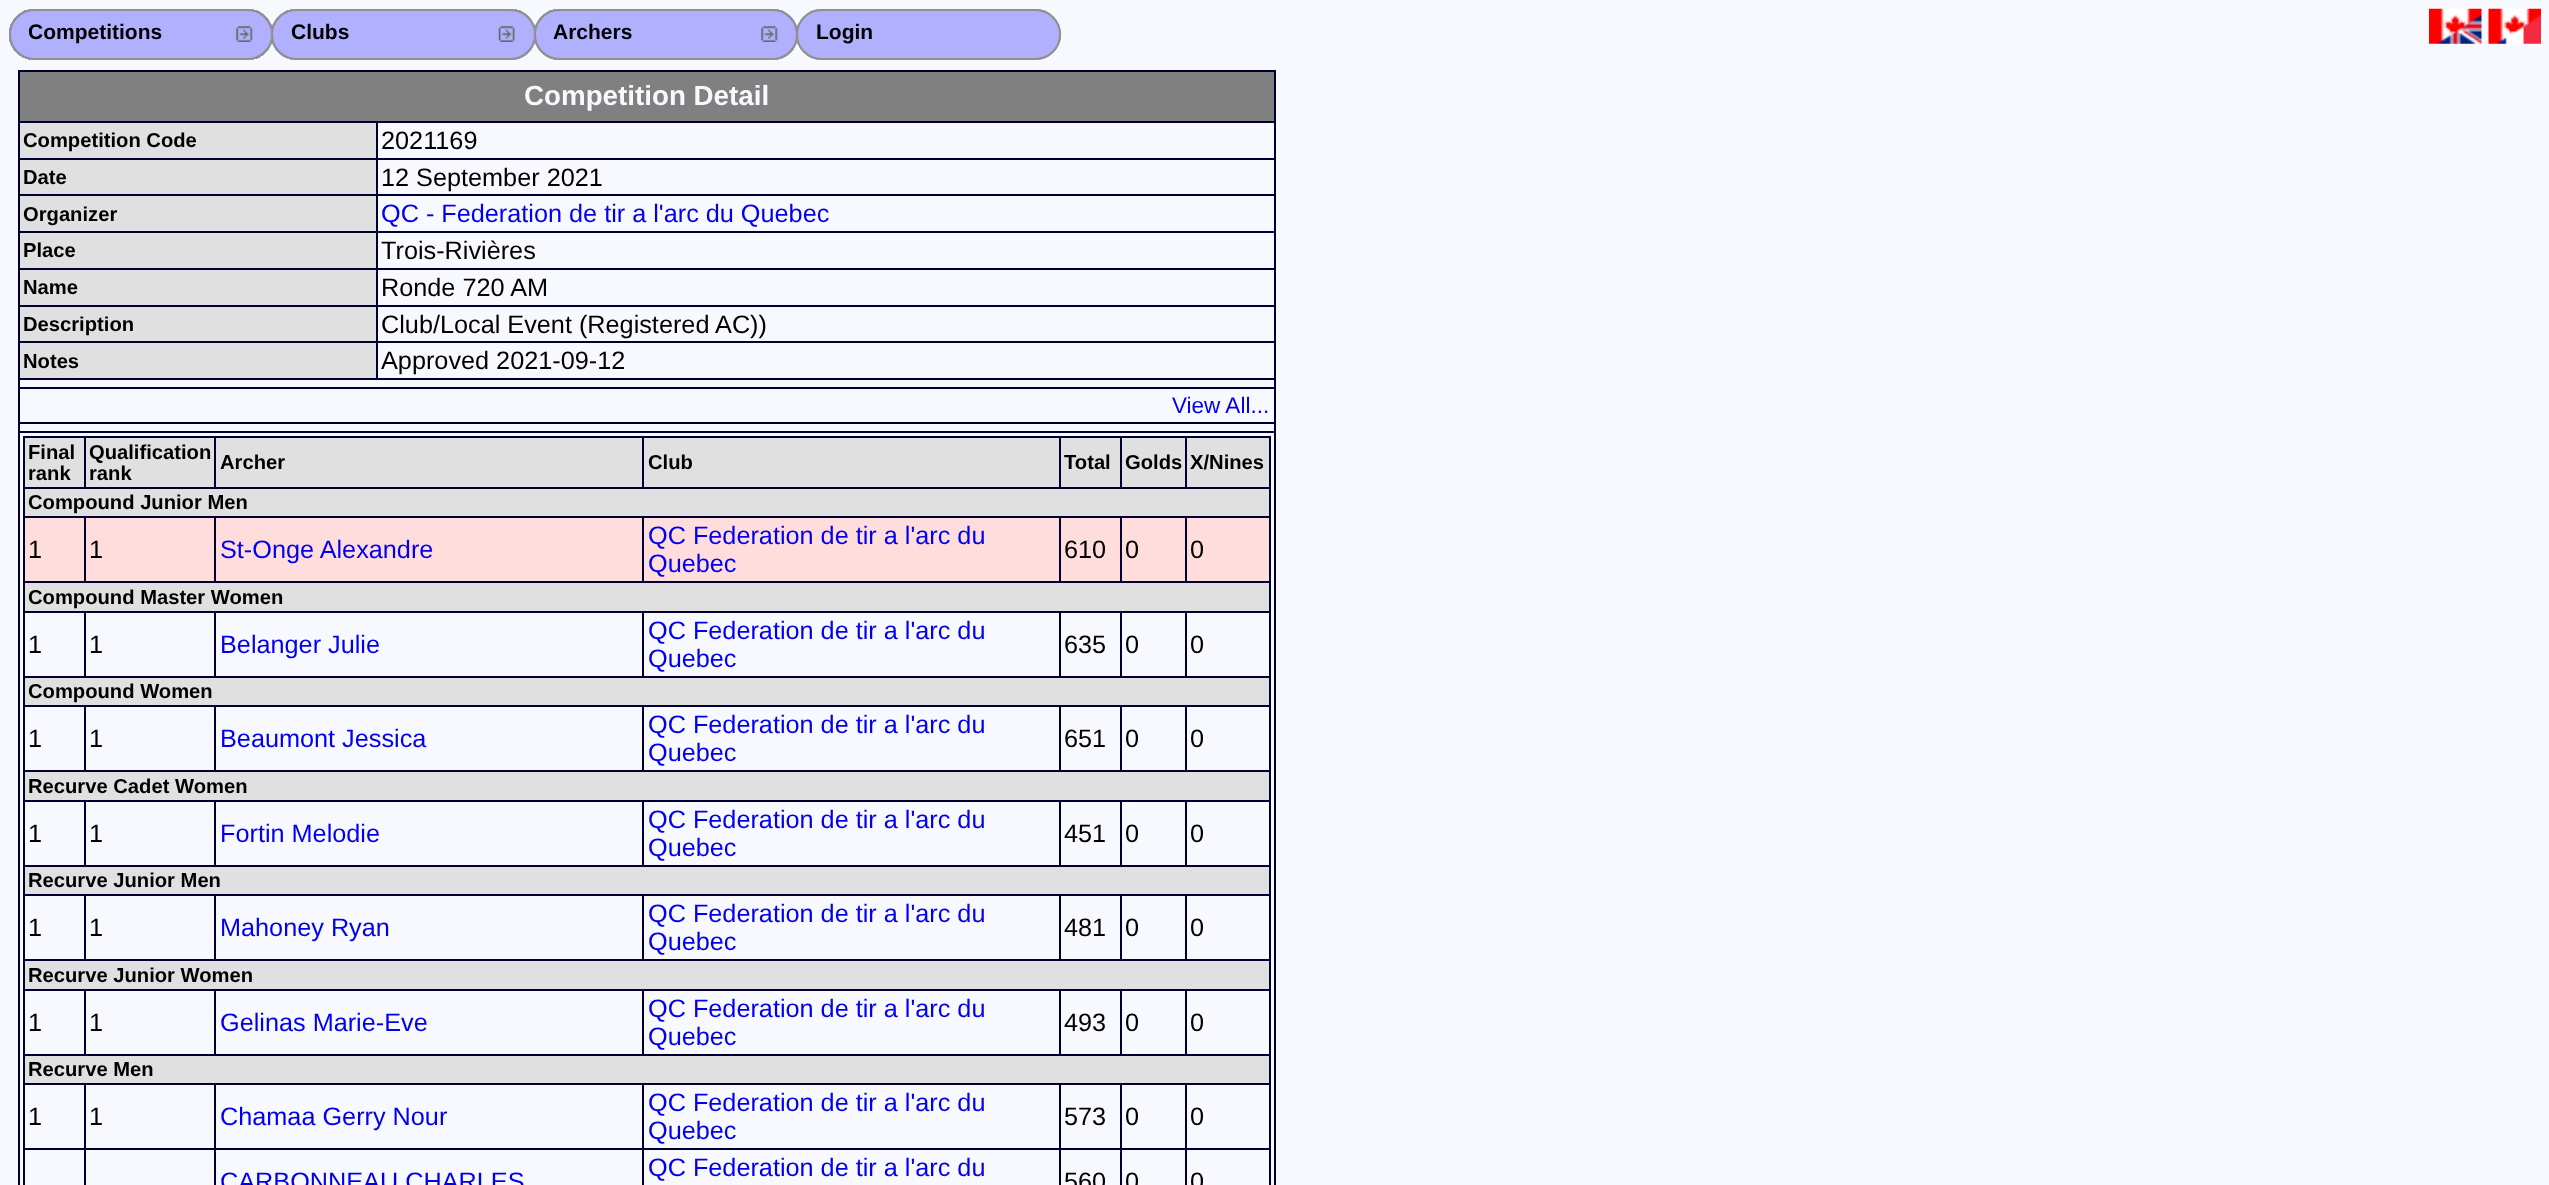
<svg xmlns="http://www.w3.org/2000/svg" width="2549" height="1185">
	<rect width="100%" height="100%" fill="#F8F8FF" />
	<rect x="10" y="10" width="262" height="49" rx="24.5" fill="none" stroke="#909090" stroke-width="2" />
	<rect x="272" y="10" width="263" height="49" rx="24.5" fill="none" stroke="#909090" stroke-width="2" />
	<rect x="10" y="10" width="262" height="49" rx="24.5" fill="none" stroke="#909090" stroke-width="2" />
	<rect x="10" y="10" width="262" height="49" rx="24.5" fill="none" stroke="#909090" stroke-width="2" />
	<rect x="10" y="10" width="262" height="49" rx="24.5" fill="none" stroke="#909090" stroke-width="2" />
	<rect x="10" y="10" width="262" height="49" rx="24.5" fill="none" stroke="#909090" stroke-width="2" />
	<rect x="10" y="10" width="262" height="49" rx="24.5" fill="none" stroke="#909090" stroke-width="2" />
	<rect x="10" y="10" width="262" height="49" rx="24.5" fill="none" stroke="#909090" stroke-width="2" />
	<rect x="10" y="10" width="262" height="49" rx="24.5" fill="none" stroke="#909090" stroke-width="2" />
	<rect x="10" y="10" width="262" height="49" rx="24.5" fill="none" stroke="#909090" stroke-width="2" />
	<rect x="10" y="10" width="262" height="49" rx="24.5" fill="none" stroke="#909090" stroke-width="2" />
	<rect x="10" y="10" width="262" height="49" rx="24.5" fill="none" stroke="#909090" stroke-width="2" />
	<rect x="10" y="10" width="262" height="49" rx="24.5" fill="none" stroke="#909090" stroke-width="2" />
	<rect x="10" y="10" width="262" height="49" rx="24.5" fill="none" stroke="#909090" stroke-width="2" />
	<rect x="10" y="10" width="262" height="49" rx="24.5" fill="none" stroke="#909090" stroke-width="2" />
	<rect x="10" y="10" width="262" height="49" rx="24.5" fill="none" stroke="#909090" stroke-width="2" />
	<rect x="9" y="9" width="264" height="51" rx="25.5" fill="#B0B0FF" />
	<image x="236" y="26" width="17" height="16" href="assets/img1.png" />
	<rect x="10" y="10" width="262" height="49" rx="24.5" fill="none" stroke="#909090" stroke-width="2" />
	<text x="28" y="39" font-family="Liberation Sans" font-size="21" font-weight="700" fill="#000000">Competitions</text>
	<rect x="535" y="10" width="262" height="49" rx="24.5" fill="none" stroke="#909090" stroke-width="2" />
	<rect x="272" y="10" width="263" height="49" rx="24.5" fill="none" stroke="#909090" stroke-width="2" />
	<rect x="272" y="10" width="263" height="49" rx="24.5" fill="none" stroke="#909090" stroke-width="2" />
	<rect x="272" y="10" width="263" height="49" rx="24.5" fill="none" stroke="#909090" stroke-width="2" />
	<rect x="272" y="10" width="263" height="49" rx="24.5" fill="none" stroke="#909090" stroke-width="2" />
	<rect x="272" y="10" width="263" height="49" rx="24.5" fill="none" stroke="#909090" stroke-width="2" />
	<rect x="271" y="9" width="265" height="51" rx="25.5" fill="#B0B0FF" />
	<image x="498" y="26" width="17" height="16" href="assets/img2.png" />
	<rect x="272" y="10" width="263" height="49" rx="24.5" fill="none" stroke="#909090" stroke-width="2" />
	<text x="291" y="39" font-family="Liberation Sans" font-size="21" font-weight="700" fill="#000000">Clubs</text>
	<rect x="797" y="10" width="263" height="49" rx="24.5" fill="none" stroke="#909090" stroke-width="2" />
	<rect x="535" y="10" width="262" height="49" rx="24.5" fill="none" stroke="#909090" stroke-width="2" />
	<rect x="535" y="10" width="262" height="49" rx="24.5" fill="none" stroke="#909090" stroke-width="2" />
	<rect x="535" y="10" width="262" height="49" rx="24.5" fill="none" stroke="#909090" stroke-width="2" />
	<rect x="535" y="10" width="262" height="49" rx="24.5" fill="none" stroke="#909090" stroke-width="2" />
	<rect x="535" y="10" width="262" height="49" rx="24.5" fill="none" stroke="#909090" stroke-width="2" />
	<rect x="534" y="9" width="264" height="51" rx="25.5" fill="#B0B0FF" />
	<image x="761" y="26" width="17" height="16" href="assets/img1.png" />
	<rect x="535" y="10" width="262" height="49" rx="24.5" fill="none" stroke="#909090" stroke-width="2" />
	<text x="553" y="39" font-family="Liberation Sans" font-size="21" font-weight="700" fill="#000000">Archers</text>
	<rect x="797" y="10" width="263" height="49" rx="24.5" fill="#B0B0FF" stroke="#909090" stroke-width="2" />
	<text x="816" y="39" font-family="Liberation Sans" font-size="21" font-weight="700" fill="#000000">Login</text>
	<image x="2429" y="8" width="53" height="36" href="assets/img3.png" />
	<image x="2488" y="8" width="53" height="36" href="assets/img4.png" />
	<rect x="18" y="70" width="1258" height="2" fill="#000033" />
	<rect x="1274" y="70" width="2" height="1115" fill="#000033" />
	<rect x="18" y="70" width="2" height="1115" fill="#000033" />
	<rect x="20" y="72" width="1254" height="49" fill="#808080" />
	<text x="524" y="105" font-family="Liberation Sans" font-size="27.75" font-weight="700" fill="#F8F8FF">Competition Detail</text>
	<rect x="20" y="123" width="356" height="35" fill="#E0E0E0" />
	<rect x="376" y="121" width="900" height="2" fill="#000033" />
	<rect x="376" y="158" width="900" height="2" fill="#000033" />
	<rect x="376" y="194" width="900" height="2" fill="#000033" />
	<rect x="376" y="231" width="900" height="2" fill="#000033" />
	<rect x="376" y="268" width="900" height="2" fill="#000033" />
	<rect x="376" y="305" width="900" height="2" fill="#000033" />
	<rect x="376" y="341" width="900" height="2" fill="#000033" />
	<rect x="18" y="378" width="1258" height="2" fill="#000033" />
	<rect x="376" y="341" width="2" height="39" fill="#000033" />
	<rect x="18" y="341" width="360" height="2" fill="#000033" />
	<rect x="376" y="305" width="2" height="38" fill="#000033" />
	<rect x="18" y="305" width="360" height="2" fill="#000033" />
	<rect x="376" y="268" width="2" height="38" fill="#000033" />
	<rect x="18" y="268" width="360" height="2" fill="#000033" />
	<rect x="376" y="231" width="2" height="39" fill="#000033" />
	<rect x="18" y="231" width="360" height="2" fill="#000033" />
	<rect x="376" y="194" width="2" height="39" fill="#000033" />
	<rect x="18" y="194" width="360" height="2" fill="#000033" />
	<rect x="376" y="158" width="2" height="38" fill="#000033" />
	<rect x="18" y="158" width="360" height="2" fill="#000033" />
	<rect x="376" y="121" width="2" height="38" fill="#000033" />
	<rect x="18" y="121" width="360" height="2" fill="#000033" />
	<text x="23" y="147" font-family="Liberation Sans" font-size="20.2" font-weight="700" fill="#000000">Competition Code</text>
	<text x="381" y="149" font-family="Liberation Sans" font-size="25.25" fill="#000000">2021169</text>
	<rect x="20" y="160" width="356" height="34" fill="#E0E0E0" />
	<text x="23" y="184" font-family="Liberation Sans" font-size="20.2" font-weight="700" fill="#000000">Date</text>
	<text x="381" y="186" font-family="Liberation Sans" font-size="25.25" fill="#000000">12 September 2021</text>
	<rect x="20" y="196" width="356" height="35" fill="#E0E0E0" />
	<text x="23" y="221" font-family="Liberation Sans" font-size="20.2" font-weight="700" fill="#000000">Organizer</text>
	<text x="381" y="222" font-family="Liberation Sans" font-size="25.25" fill="#0000EE">QC - Federation de tir a l'arc du Quebec</text>
	<rect x="20" y="233" width="356" height="35" fill="#E0E0E0" />
	<text x="23" y="257" font-family="Liberation Sans" font-size="20.2" font-weight="700" fill="#000000">Place</text>
	<text x="381" y="259" font-family="Liberation Sans" font-size="25.25" fill="#000000">Trois-Rivières</text>
	<rect x="20" y="270" width="356" height="35" fill="#E0E0E0" />
	<text x="23" y="294" font-family="Liberation Sans" font-size="20.2" font-weight="700" fill="#000000">Name</text>
	<text x="381" y="296" font-family="Liberation Sans" font-size="25.25" fill="#000000">Ronde 720 AM</text>
	<rect x="20" y="307" width="356" height="34" fill="#E0E0E0" />
	<text x="23" y="331" font-family="Liberation Sans" font-size="20.2" font-weight="700" fill="#000000">Description</text>
	<text x="381" y="333" font-family="Liberation Sans" font-size="25.25" fill="#000000">Club/Local Event (Registered AC))</text>
	<rect x="20" y="343" width="356" height="35" fill="#E0E0E0" />
	<text x="23" y="368" font-family="Liberation Sans" font-size="20.2" font-weight="700" fill="#000000">Notes</text>
	<text x="381" y="369" font-family="Liberation Sans" font-size="25.25" fill="#000000">Approved 2021-09-12</text>
	<rect x="18" y="387" width="1258" height="2" fill="#000033" />
	<text x="1172" y="413" font-family="Liberation Sans" font-size="22.5" fill="#0000EE">View All...</text>
	<rect x="18" y="422" width="1258" height="2" fill="#000033" />
	<rect x="18" y="431" width="1258" height="2" fill="#000033" />
	<rect x="23" y="436" width="1248" height="2" fill="#000033" />
	<rect x="1269" y="436" width="2" height="749" fill="#000033" />
	<rect x="23" y="436" width="2" height="749" fill="#000033" />
	<rect x="25" y="438" width="59" height="49" fill="#E0E0E0" />
	<g font-family="Liberation Sans" font-size="20.2" font-weight="700" fill="#000000">
		<text x="28" y="459">Final</text>
		<text x="28" y="480">rank</text>
	</g>
	<rect x="86" y="438" width="128" height="49" fill="#E0E0E0" />
	<rect x="23" y="487" width="1248" height="2" fill="#000033" />
	<rect x="84" y="436" width="2" height="52" fill="#000033" />
	<g font-family="Liberation Sans" font-size="20.2" font-weight="700" fill="#000000">
		<text x="89" y="459">Qualification</text>
		<text x="89" y="480">rank</text>
	</g>
	<rect x="216" y="438" width="426" height="49" fill="#E0E0E0" />
	<rect x="214" y="436" width="2" height="52" fill="#000033" />
	<text x="220" y="469" font-family="Liberation Sans" font-size="20.2" font-weight="700" fill="#000000">Archer</text>
	<rect x="644" y="438" width="415" height="49" fill="#E0E0E0" />
	<rect x="642" y="436" width="2" height="52" fill="#000033" />
	<text x="648" y="469" font-family="Liberation Sans" font-size="20.2" font-weight="700" fill="#000000">Club</text>
	<rect x="1061" y="438" width="59" height="49" fill="#E0E0E0" />
	<rect x="1059" y="436" width="2" height="52" fill="#000033" />
	<text x="1064" y="469" font-family="Liberation Sans" font-size="20.2" font-weight="700" fill="#000000">Total</text>
	<rect x="1122" y="438" width="63" height="49" fill="#E0E0E0" />
	<rect x="1120" y="436" width="2" height="52" fill="#000033" />
	<text x="1125" y="469" font-family="Liberation Sans" font-size="20.2" font-weight="700" fill="#000000">Golds</text>
	<rect x="1187" y="438" width="82" height="49" fill="#E0E0E0" />
	<rect x="1185" y="436" width="2" height="52" fill="#000033" />
	<text x="1190" y="469" font-family="Liberation Sans" font-size="20.2" font-weight="700" fill="#000000">X/Nines</text>
	<rect x="25" y="489" width="1244" height="27" fill="#E0E0E0" />
	<text x="28" y="509" font-family="Liberation Sans" font-size="20.2" font-weight="700" fill="#000000">Compound Junior Men</text>
	<rect x="25" y="518" width="59" height="63" fill="#FFDDDD" />
	<rect x="1185" y="516" width="86" height="2" fill="#000033" />
	<rect x="23" y="581" width="1248" height="2" fill="#000033" />
	<rect x="1185" y="516" width="2" height="67" fill="#000033" />
	<rect x="1120" y="516" width="67" height="2" fill="#000033" />
	<rect x="1120" y="516" width="2" height="67" fill="#000033" />
	<rect x="1059" y="516" width="63" height="2" fill="#000033" />
	<rect x="1059" y="516" width="2" height="67" fill="#000033" />
	<rect x="642" y="516" width="419" height="2" fill="#000033" />
	<rect x="642" y="516" width="2" height="67" fill="#000033" />
	<rect x="214" y="516" width="430" height="2" fill="#000033" />
	<rect x="214" y="516" width="2" height="67" fill="#000033" />
	<rect x="84" y="516" width="131" height="2" fill="#000033" />
	<rect x="84" y="516" width="2" height="67" fill="#000033" />
	<rect x="23" y="516" width="63" height="2" fill="#000033" />
	<text x="28" y="558" font-family="Liberation Sans" font-size="25.25" fill="#000000">1</text>
	<rect x="86" y="518" width="128" height="63" fill="#FFDDDD" />
	<text x="89" y="558" font-family="Liberation Sans" font-size="25.25" fill="#000000">1</text>
	<rect x="216" y="518" width="426" height="63" fill="#FFDDDD" />
	<text x="220" y="558" font-family="Liberation Sans" font-size="25.25" fill="#0000EE">St-Onge Alexandre</text>
	<rect x="644" y="518" width="415" height="63" fill="#FFDDDD" />
	<g font-family="Liberation Sans" font-size="25.25" fill="#0000EE">
		<text x="648" y="544">QC Federation de tir a l'arc du</text>
		<text x="648" y="572">Quebec</text>
	</g>
	<rect x="1061" y="518" width="59" height="63" fill="#FFDDDD" />
	<text x="1064" y="558" font-family="Liberation Sans" font-size="25.25" fill="#000000">610</text>
	<rect x="1122" y="518" width="63" height="63" fill="#FFDDDD" />
	<text x="1125" y="558" font-family="Liberation Sans" font-size="25.25" fill="#000000">0</text>
	<rect x="1187" y="518" width="82" height="63" fill="#FFDDDD" />
	<text x="1190" y="558" font-family="Liberation Sans" font-size="25.25" fill="#000000">0</text>
	<rect x="25" y="583" width="1244" height="28" fill="#E0E0E0" />
	<text x="28" y="604" font-family="Liberation Sans" font-size="20.2" font-weight="700" fill="#000000">Compound Master Women</text>
	<rect x="1185" y="611" width="86" height="2" fill="#000033" />
	<rect x="23" y="676" width="1248" height="2" fill="#000033" />
	<rect x="1185" y="611" width="2" height="66" fill="#000033" />
	<rect x="1120" y="611" width="67" height="2" fill="#000033" />
	<rect x="1120" y="611" width="2" height="66" fill="#000033" />
	<rect x="1059" y="611" width="63" height="2" fill="#000033" />
	<rect x="1059" y="611" width="2" height="66" fill="#000033" />
	<rect x="642" y="611" width="419" height="2" fill="#000033" />
	<rect x="642" y="611" width="2" height="66" fill="#000033" />
	<rect x="214" y="611" width="430" height="2" fill="#000033" />
	<rect x="214" y="611" width="2" height="66" fill="#000033" />
	<rect x="84" y="611" width="131" height="2" fill="#000033" />
	<rect x="84" y="611" width="2" height="66" fill="#000033" />
	<rect x="23" y="611" width="63" height="2" fill="#000033" />
	<g font-family="Liberation Sans" font-size="25.25" fill="#000000">
		<text x="28" y="653">1</text>
		<text x="89" y="653">1</text>
	</g>
	<g font-family="Liberation Sans" font-size="25.25" fill="#0000EE">
		<text x="220" y="653">Belanger Julie</text>
		<text x="648" y="639">QC Federation de tir a l'arc du</text>
		<text x="648" y="667">Quebec</text>
	</g>
	<g font-family="Liberation Sans" font-size="25.25" fill="#000000">
		<text x="1064" y="653">635</text>
		<text x="1125" y="653">0</text>
		<text x="1190" y="653">0</text>
	</g>
	<rect x="25" y="678" width="1244" height="27" fill="#E0E0E0" />
	<text x="28" y="698" font-family="Liberation Sans" font-size="20.2" font-weight="700" fill="#000000">Compound Women</text>
	<rect x="1185" y="705" width="86" height="2" fill="#000033" />
	<rect x="23" y="770" width="1248" height="2" fill="#000033" />
	<rect x="1185" y="705" width="2" height="67" fill="#000033" />
	<rect x="1120" y="705" width="67" height="2" fill="#000033" />
	<rect x="1120" y="705" width="2" height="67" fill="#000033" />
	<rect x="1059" y="705" width="63" height="2" fill="#000033" />
	<rect x="1059" y="705" width="2" height="67" fill="#000033" />
	<rect x="642" y="705" width="419" height="2" fill="#000033" />
	<rect x="642" y="705" width="2" height="67" fill="#000033" />
	<rect x="214" y="705" width="430" height="2" fill="#000033" />
	<rect x="214" y="705" width="2" height="67" fill="#000033" />
	<rect x="84" y="705" width="131" height="2" fill="#000033" />
	<rect x="84" y="705" width="2" height="67" fill="#000033" />
	<rect x="23" y="705" width="63" height="2" fill="#000033" />
	<g font-family="Liberation Sans" font-size="25.25" fill="#000000">
		<text x="28" y="747">1</text>
		<text x="89" y="747">1</text>
	</g>
	<g font-family="Liberation Sans" font-size="25.25" fill="#0000EE">
		<text x="220" y="747">Beaumont Jessica</text>
		<text x="648" y="733">QC Federation de tir a l'arc du</text>
		<text x="648" y="761">Quebec</text>
	</g>
	<g font-family="Liberation Sans" font-size="25.25" fill="#000000">
		<text x="1064" y="747">651</text>
		<text x="1125" y="747">0</text>
		<text x="1190" y="747">0</text>
	</g>
	<rect x="25" y="772" width="1244" height="28" fill="#E0E0E0" />
	<text x="28" y="793" font-family="Liberation Sans" font-size="20.2" font-weight="700" fill="#000000">Recurve Cadet Women</text>
	<rect x="1185" y="800" width="86" height="2" fill="#000033" />
	<rect x="23" y="865" width="1248" height="2" fill="#000033" />
	<rect x="1185" y="800" width="2" height="66" fill="#000033" />
	<rect x="1120" y="800" width="67" height="2" fill="#000033" />
	<rect x="1120" y="800" width="2" height="66" fill="#000033" />
	<rect x="1059" y="800" width="63" height="2" fill="#000033" />
	<rect x="1059" y="800" width="2" height="66" fill="#000033" />
	<rect x="642" y="800" width="419" height="2" fill="#000033" />
	<rect x="642" y="800" width="2" height="66" fill="#000033" />
	<rect x="214" y="800" width="430" height="2" fill="#000033" />
	<rect x="214" y="800" width="2" height="66" fill="#000033" />
	<rect x="84" y="800" width="131" height="2" fill="#000033" />
	<rect x="84" y="800" width="2" height="66" fill="#000033" />
	<rect x="23" y="800" width="63" height="2" fill="#000033" />
	<g font-family="Liberation Sans" font-size="25.25" fill="#000000">
		<text x="28" y="842">1</text>
		<text x="89" y="842">1</text>
	</g>
	<g font-family="Liberation Sans" font-size="25.25" fill="#0000EE">
		<text x="220" y="842">Fortin Melodie</text>
		<text x="648" y="828">QC Federation de tir a l'arc du</text>
		<text x="648" y="856">Quebec</text>
	</g>
	<g font-family="Liberation Sans" font-size="25.25" fill="#000000">
		<text x="1064" y="842">451</text>
		<text x="1125" y="842">0</text>
		<text x="1190" y="842">0</text>
	</g>
	<rect x="25" y="867" width="1244" height="27" fill="#E0E0E0" />
	<text x="28" y="887" font-family="Liberation Sans" font-size="20.2" font-weight="700" fill="#000000">Recurve Junior Men</text>
	<rect x="1185" y="894" width="86" height="2" fill="#000033" />
	<rect x="23" y="959" width="1248" height="2" fill="#000033" />
	<rect x="1185" y="894" width="2" height="67" fill="#000033" />
	<rect x="1120" y="894" width="67" height="2" fill="#000033" />
	<rect x="1120" y="894" width="2" height="67" fill="#000033" />
	<rect x="1059" y="894" width="63" height="2" fill="#000033" />
	<rect x="1059" y="894" width="2" height="67" fill="#000033" />
	<rect x="642" y="894" width="419" height="2" fill="#000033" />
	<rect x="642" y="894" width="2" height="67" fill="#000033" />
	<rect x="214" y="894" width="430" height="2" fill="#000033" />
	<rect x="214" y="894" width="2" height="67" fill="#000033" />
	<rect x="84" y="894" width="131" height="2" fill="#000033" />
	<rect x="84" y="894" width="2" height="67" fill="#000033" />
	<rect x="23" y="894" width="63" height="2" fill="#000033" />
	<g font-family="Liberation Sans" font-size="25.25" fill="#000000">
		<text x="28" y="936">1</text>
		<text x="89" y="936">1</text>
	</g>
	<g font-family="Liberation Sans" font-size="25.25" fill="#0000EE">
		<text x="220" y="936">Mahoney Ryan</text>
		<text x="648" y="922">QC Federation de tir a l'arc du</text>
		<text x="648" y="950">Quebec</text>
	</g>
	<g font-family="Liberation Sans" font-size="25.25" fill="#000000">
		<text x="1064" y="936">481</text>
		<text x="1125" y="936">0</text>
		<text x="1190" y="936">0</text>
	</g>
	<rect x="25" y="961" width="1244" height="28" fill="#E0E0E0" />
	<text x="28" y="982" font-family="Liberation Sans" font-size="20.2" font-weight="700" fill="#000000">Recurve Junior Women</text>
	<rect x="1185" y="989" width="86" height="2" fill="#000033" />
	<rect x="23" y="1054" width="1248" height="2" fill="#000033" />
	<rect x="1185" y="989" width="2" height="66" fill="#000033" />
	<rect x="1120" y="989" width="67" height="2" fill="#000033" />
	<rect x="1120" y="989" width="2" height="66" fill="#000033" />
	<rect x="1059" y="989" width="63" height="2" fill="#000033" />
	<rect x="1059" y="989" width="2" height="66" fill="#000033" />
	<rect x="642" y="989" width="419" height="2" fill="#000033" />
	<rect x="642" y="989" width="2" height="66" fill="#000033" />
	<rect x="214" y="989" width="430" height="2" fill="#000033" />
	<rect x="214" y="989" width="2" height="66" fill="#000033" />
	<rect x="84" y="989" width="131" height="2" fill="#000033" />
	<rect x="84" y="989" width="2" height="66" fill="#000033" />
	<rect x="23" y="989" width="63" height="2" fill="#000033" />
	<g font-family="Liberation Sans" font-size="25.25" fill="#000000">
		<text x="28" y="1031">1</text>
		<text x="89" y="1031">1</text>
	</g>
	<g font-family="Liberation Sans" font-size="25.25" fill="#0000EE">
		<text x="220" y="1031">Gelinas Marie-Eve</text>
		<text x="648" y="1017">QC Federation de tir a l'arc du</text>
		<text x="648" y="1045">Quebec</text>
	</g>
	<g font-family="Liberation Sans" font-size="25.25" fill="#000000">
		<text x="1064" y="1031">493</text>
		<text x="1125" y="1031">0</text>
		<text x="1190" y="1031">0</text>
	</g>
	<rect x="25" y="1056" width="1244" height="27" fill="#E0E0E0" />
	<text x="28" y="1076" font-family="Liberation Sans" font-size="20.2" font-weight="700" fill="#000000">Recurve Men</text>
	<rect x="1185" y="1083" width="86" height="2" fill="#000033" />
	<rect x="1185" y="1148" width="86" height="2" fill="#000033" />
	<rect x="1185" y="1148" width="2" height="37" fill="#000033" />
	<rect x="1120" y="1148" width="67" height="2" fill="#000033" />
	<rect x="1185" y="1083" width="2" height="67" fill="#000033" />
	<rect x="1120" y="1083" width="67" height="2" fill="#000033" />
	<rect x="1120" y="1148" width="2" height="37" fill="#000033" />
	<rect x="1059" y="1148" width="63" height="2" fill="#000033" />
	<rect x="1120" y="1083" width="2" height="67" fill="#000033" />
	<rect x="1059" y="1083" width="63" height="2" fill="#000033" />
	<rect x="1059" y="1148" width="2" height="37" fill="#000033" />
	<rect x="642" y="1148" width="419" height="2" fill="#000033" />
	<rect x="1059" y="1083" width="2" height="67" fill="#000033" />
	<rect x="642" y="1083" width="419" height="2" fill="#000033" />
	<rect x="642" y="1148" width="2" height="37" fill="#000033" />
	<rect x="214" y="1148" width="430" height="2" fill="#000033" />
	<rect x="642" y="1083" width="2" height="67" fill="#000033" />
	<rect x="214" y="1083" width="430" height="2" fill="#000033" />
	<rect x="214" y="1148" width="2" height="37" fill="#000033" />
	<rect x="84" y="1148" width="131" height="2" fill="#000033" />
	<rect x="214" y="1083" width="2" height="67" fill="#000033" />
	<rect x="84" y="1083" width="131" height="2" fill="#000033" />
	<rect x="84" y="1148" width="2" height="37" fill="#000033" />
	<rect x="23" y="1148" width="63" height="2" fill="#000033" />
	<rect x="84" y="1083" width="2" height="67" fill="#000033" />
	<rect x="23" y="1083" width="63" height="2" fill="#000033" />
	<g font-family="Liberation Sans" font-size="25.25" fill="#000000">
		<text x="28" y="1125">1</text>
		<text x="89" y="1125">1</text>
	</g>
	<g font-family="Liberation Sans" font-size="25.25" fill="#0000EE">
		<text x="220" y="1125">Chamaa Gerry Nour</text>
		<text x="648" y="1111">QC Federation de tir a l'arc du</text>
		<text x="648" y="1139">Quebec</text>
	</g>
	<g font-family="Liberation Sans" font-size="25.25" fill="#000000">
		<text x="1064" y="1125">573</text>
		<text x="1125" y="1125">0</text>
		<text x="1190" y="1125">0</text>
	</g>
	<g font-family="Liberation Sans" font-size="25.25" fill="#0000EE">
		<text x="220" y="1190">CARBONNEAU CHARLES</text>
		<text x="648" y="1176">QC Federation de tir a l'arc du</text>
	</g>
	<g font-family="Liberation Sans" font-size="25.25" fill="#000000">
		<text x="1064" y="1190">560</text>
		<text x="1125" y="1190">0</text>
		<text x="1190" y="1190">0</text>
	</g>
</svg>
